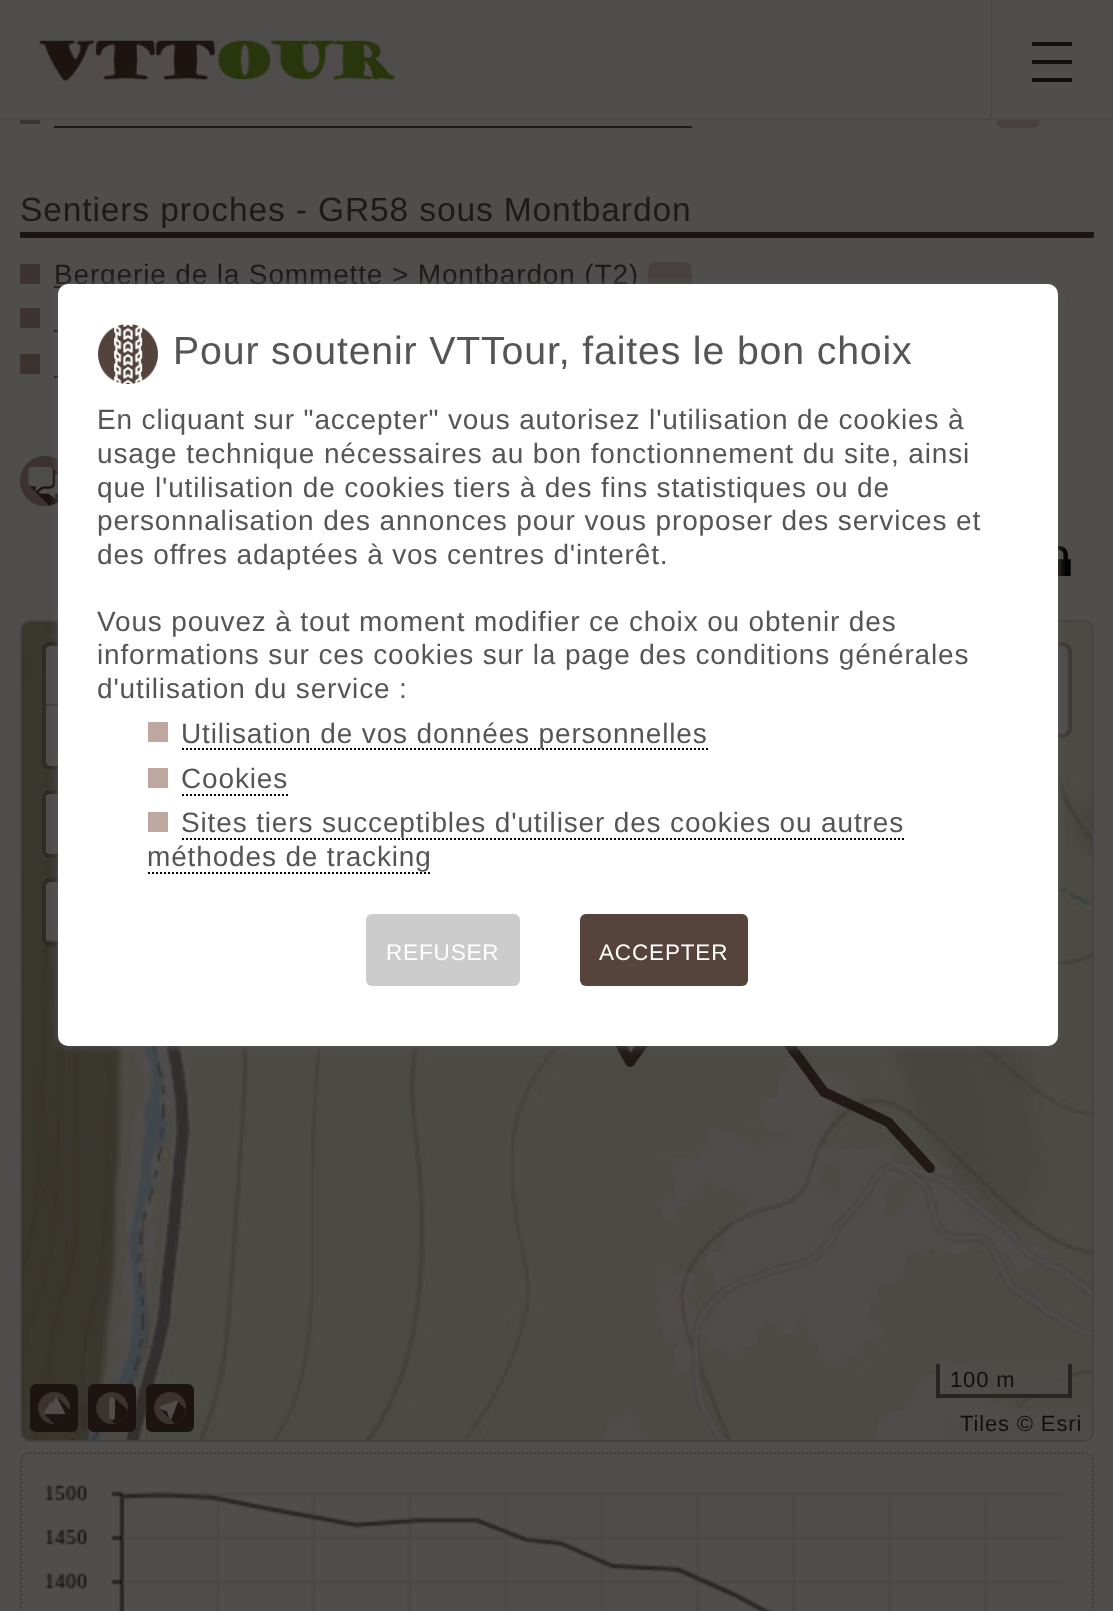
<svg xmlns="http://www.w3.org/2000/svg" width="1113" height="1611">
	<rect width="100%" height="100%" fill="#504D4D" />
	<rect x="996" y="102" width="44" height="26" rx="8" fill="#48413F" />
	<rect x="996" y="102" width="44" height="16" fill="#504D4D" />
	<rect x="0" y="118" width="1113" height="2" fill="#4B4747" />
	<image x="39" y="40" width="356" height="41" href="assets/img1.png" />
	<rect x="1112" y="0" width="1" height="120" fill="#4B4747" />
	<rect x="990" y="0" width="2" height="120" fill="#4B4747" />
	<image x="1032" y="42" width="40" height="40" href="assets/img2.png" />
	<rect x="20" y="120" width="20" height="4" fill="#3C322F" />
	<rect x="54" y="126" width="638" height="2" fill="#1D1A1A" />
	<rect x="20" y="232" width="1074" height="6" fill="#1D1412" />
	<text x="20" y="221" font-family="Liberation Sans" font-size="33.6" letter-spacing="0.85" fill="#1D1A1A">Sentiers proches - GR58 sous Montbardon</text>
	<rect x="20" y="264" width="20" height="20" fill="#3C322F" />
	<rect x="54" y="286" width="8" height="2" fill="#1D1A1A" />
	<text x="54" y="284" font-family="Liberation Sans" font-size="28" letter-spacing="0.85" fill="#1D1A1A">Bergerie de la Sommette &gt; Montbardon (T2)</text>
	<rect x="648" y="262" width="44" height="26" rx="8" fill="#48413F" />
	<rect x="20" y="308" width="20" height="20" fill="#3C322F" />
	<rect x="54" y="330" width="4" height="2" fill="#1D1A1A" />
	<rect x="20" y="354" width="20" height="20" fill="#3C322F" />
	<rect x="54" y="376" width="4" height="2" fill="#1D1A1A" />
	<image x="20" y="456" width="38" height="50" href="assets/img3.png" />
	<image x="1058" y="546" width="14" height="30" href="assets/img4.png" />
	<rect x="21" y="621" width="1072" height="820" rx="9" fill="none" stroke="#464242" stroke-width="2" />
	<image x="22" y="1224" width="522" height="216" href="assets/img12.png" />
	<rect x="30" y="1384" width="48" height="48" rx="6" fill="#1D1412" />
	<image x="38" y="1392" width="32" height="32" href="assets/img5.png" />
	<rect x="88" y="1384" width="48" height="48" rx="6" fill="#1D1412" />
	<image x="96" y="1392" width="32" height="32" href="assets/img6.png" />
	<rect x="146" y="1384" width="48" height="48" rx="6" fill="#1D1412" />
	<image x="154" y="1392" width="32" height="32" href="assets/img7.png" />
	<image x="22" y="622" width="36" height="14" href="assets/img8.png" />
	<image x="1058" y="622" width="34" height="14" href="assets/img9.png" />
	<image x="22" y="636" width="522" height="588" href="assets/img10.png" />
	<image x="544" y="636" width="548" height="588" href="assets/img11.png" />
	<image x="544" y="1224" width="548" height="216" href="assets/img13.png" />
	<path d="M930 1168L888 1122L824 1092L780 1032L728 910L684 986L630 1062L598 1002L588 956H514L470 1032L428 972L384 896L352 1002L300 956L266 1016L234 972L182 910" fill="none" stroke="#1D1412" stroke-opacity="0.9" stroke-width="10" stroke-linecap="round" stroke-linejoin="round" stroke-dasharray="2 2" />
	<rect x="44" y="644" width="64" height="124" rx="6" fill="none" stroke="#040000" stroke-opacity="0.2" stroke-width="4" />
	<path d="M50 646H102C104 646 106 648 106 650V706H46V650C46 648 48 646 50 646Z" fill="#504D4D" />
	<rect x="46" y="704" width="12" height="2" fill="#413D3D" />
	<path d="M46 706H106V762C106 764 104 766 102 766H50C48 766 46 764 46 762Z" fill="#504D4D" />
	<rect x="44" y="792" width="64" height="64" rx="6" fill="none" stroke="#040000" stroke-opacity="0.2" stroke-width="4" />
	<rect x="46" y="794" width="60" height="60" rx="4" fill="#504D4D" />
	<rect x="44" y="880" width="64" height="64" rx="6" fill="none" stroke="#040000" stroke-opacity="0.2" stroke-width="4" />
	<path d="M50 882H102C104 882 106 884 106 886V942H46V886C46 884 48 882 50 882Z" fill="#504D4D" />
	<rect x="46" y="940" width="12" height="2" fill="#413D3D" />
	<rect x="980" y="646" width="88" height="88" rx="6" fill="#504D4D" />
	<rect x="978" y="644" width="92" height="92" rx="8" fill="none" stroke="#040000" stroke-opacity="0.2" stroke-width="4" />
	<rect x="958" y="1364" width="110" height="30" fill="#504D4D" fill-opacity="0.5" />
	<rect x="1068" y="1364" width="4" height="34" fill="#272424" />
	<rect x="936" y="1394" width="136" height="4" fill="#272424" />
	<rect x="936" y="1364" width="4" height="34" fill="#272424" />
	<text x="950" y="1387" font-family="Liberation Sans" font-size="22" letter-spacing="0.85" fill="#130F0F">100 m</text>
	<path d="M950 1408H1092V1432C1092 1436.5 1088.5 1440 1084 1440H950Z" fill="#504D4D" fill-opacity="0.7" />
	<text x="960" y="1431" font-family="Liberation Sans" font-size="22" letter-spacing="0.85" fill="#130F0F">Tiles © Esri</text>
	<path d="M30 1453H1084C1089 1453 1093 1457 1093 1462V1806C1093 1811 1089 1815 1084 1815H30C25 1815 21 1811 21 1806V1462C21 1457 25 1453 30 1453Z" fill="none" stroke="#413D3D" stroke-width="2" stroke-dasharray="2 2" />
	<image x="45" y="1485" width="1017" height="126" href="assets/img14.png" />
	<rect x="58" y="284" width="1000" height="762" rx="10" fill="#555555" filter="blur(5px)" />
	<rect x="58" y="284" width="1000" height="762" rx="10" fill="#FFFFFF" />
	<image x="98" y="324" width="60" height="60" href="assets/img15.png" />
	<text x="173" y="364" font-family="Liberation Sans" font-size="39.25" letter-spacing="0.85" fill="#555555">Pour soutenir VTTour, faites le bon choix</text>
	<g font-family="Liberation Sans" font-size="28" letter-spacing="0.85" fill="#555555">
		<text x="97" y="429">En cliquant sur "accepter" vous autorisez l'utilisation de cookies à</text>
		<text x="97" y="463">usage technique nécessaires au bon fonctionnement du site, ainsi</text>
		<text x="97" y="497">que l'utilisation de cookies tiers à des fins statistiques ou de</text>
		<text x="97" y="530">personnalisation des annonces pour vous proposer des services et</text>
		<text x="97" y="564">des offres adaptées à vos centres d'interêt.</text>
		<text x="97" y="631">Vous pouvez à tout moment modifier ce choix ou obtenir des</text>
		<text x="97" y="664">informations sur ces cookies sur la page des conditions générales</text>
		<text x="97" y="698">d'utilisation du service :</text>
	</g>
	<rect x="148" y="722" width="20" height="20" fill="#BDA79E" />
	<path d="M182 749H708" fill="none" stroke="#000000" stroke-width="2" stroke-dasharray="2 2" />
	<text x="181" y="743" font-family="Liberation Sans" font-size="28" letter-spacing="0.85" fill="#555555">Utilisation de vos données personnelles</text>
	<rect x="148" y="768" width="20" height="20" fill="#BDA79E" />
	<text x="181" y="788" font-family="Liberation Sans" font-size="28" letter-spacing="0.85" fill="#555555">Cookies</text>
	<path d="M182 795H288" fill="none" stroke="#000000" stroke-width="2" stroke-dasharray="2 2" />
	<rect x="148" y="812" width="20" height="20" fill="#BDA79E" />
	<text x="181" y="832" font-family="Liberation Sans" font-size="28" letter-spacing="0.85" fill="#555555">Sites tiers succeptibles d'utiliser des cookies ou autres</text>
	<path d="M182 839H904" fill="none" stroke="#000000" stroke-width="2" stroke-dasharray="2 2" />
	<text x="147" y="866" font-family="Liberation Sans" font-size="28" letter-spacing="0.85" fill="#555555">méthodes de tracking</text>
	<path d="M148 873H432" fill="none" stroke="#000000" stroke-width="2" stroke-dasharray="2 2" />
	<rect x="366" y="914" width="154" height="72" rx="6" fill="#CCCCCC" />
	<text x="386" y="960" font-family="Liberation Sans" font-size="22.5" letter-spacing="0.85" fill="#FFFFFF">REFUSER</text>
	<rect x="580" y="914" width="168" height="72" rx="6" fill="#55433C" />
	<text x="599" y="960" font-family="Liberation Sans" font-size="22.5" letter-spacing="0.85" fill="#FFFFFF">ACCEPTER</text>
</svg>
